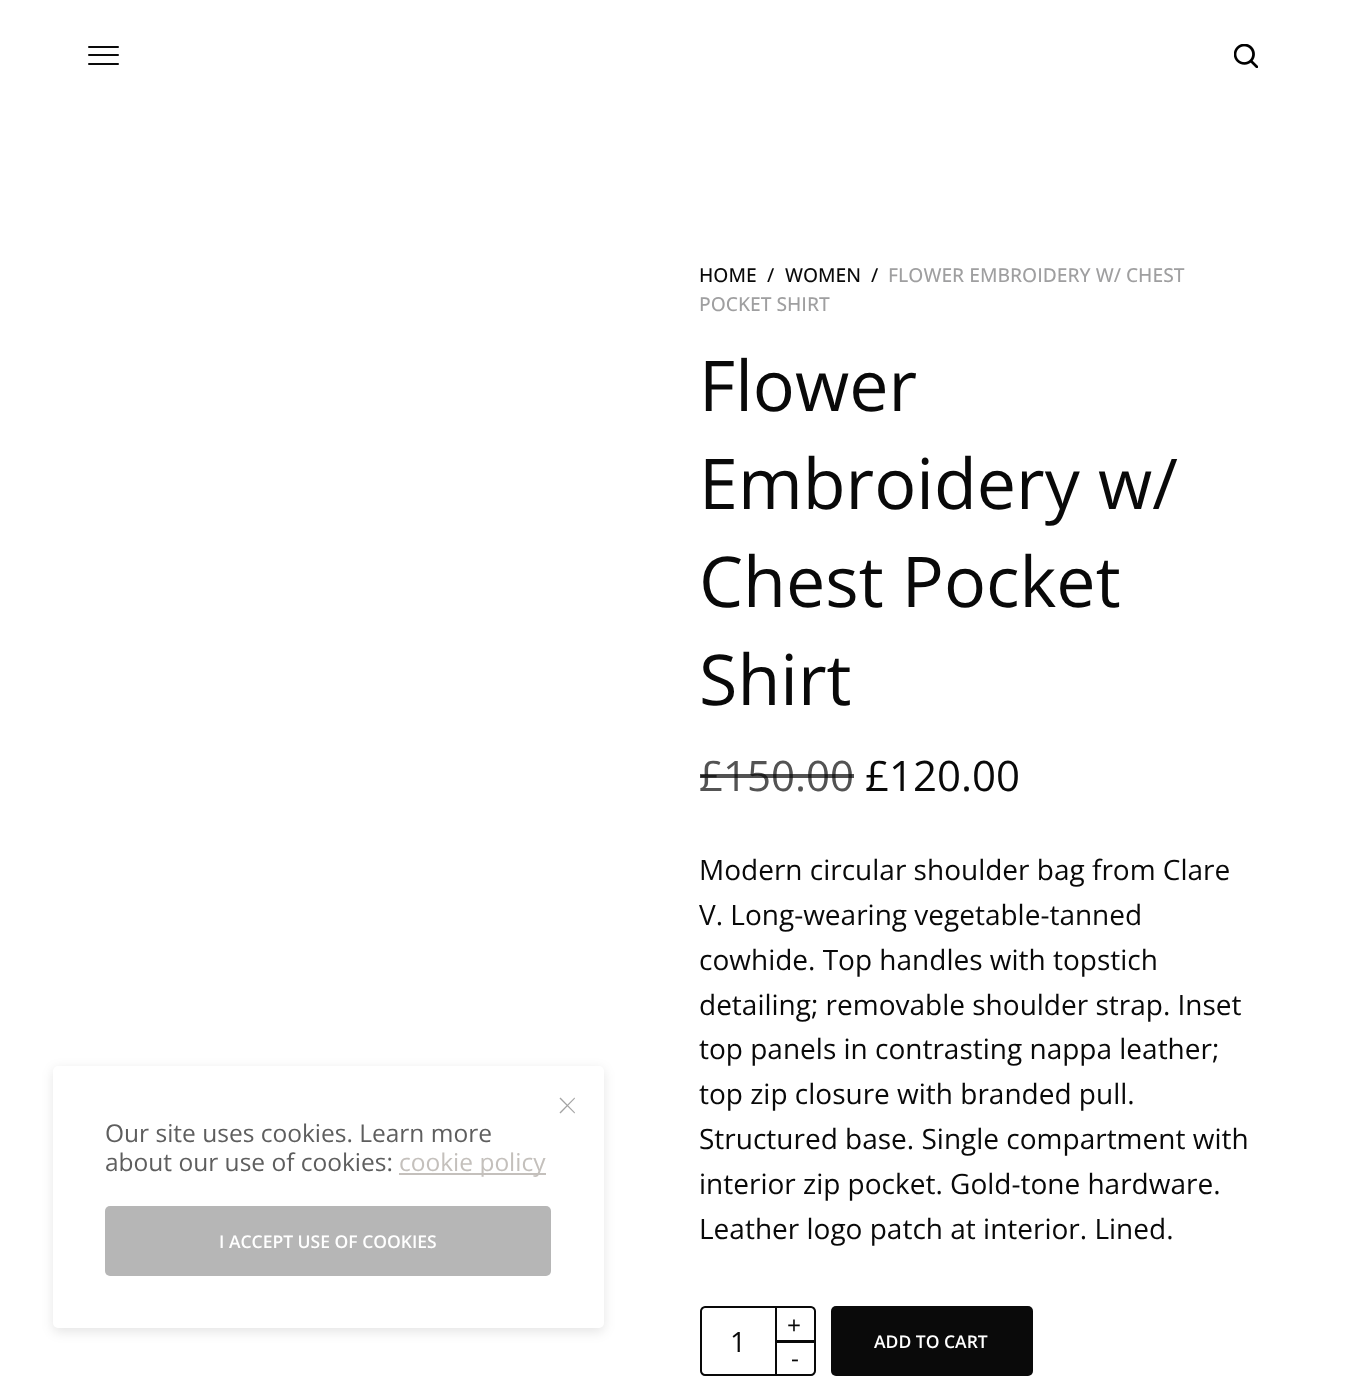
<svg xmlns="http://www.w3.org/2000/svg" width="1345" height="1380">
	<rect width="100%" height="100%" fill="#FFFFFF" />
	<rect x="88" y="46" width="31" height="2" rx="1" fill="#0A0A0A" />
	<rect x="88" y="54" width="31" height="2" rx="1" fill="#0A0A0A" />
	<rect x="88" y="63" width="31" height="2" rx="1" fill="#0A0A0A" />
	<image x="1234" y="44" width="24" height="24" href="assets/img1.png" />
	<rect x="53" y="1069" width="551" height="263" rx="5" fill="#000000" fill-opacity="0.1" filter="blur(6px)" />
	<rect x="53" y="1066" width="551" height="262" rx="5" fill="#FFFFFF" />
	<path d="M560.5 1097.5L575 1112.5L574.5 1113.5L559.5 1098.5Z" fill="#A3A3A3" />
	<path d="M559.5 1112.5L574.5 1097.5L575 1098.5L560.5 1113.5Z" fill="#A3A3A3" />
	<g font-family="Open Sans" font-size="24.5" fill="#5E5E5E">
		<text x="105" y="1142">Our site uses cookies. Learn more</text>
		<text x="105" y="1171">about our use of cookies:</text>
	</g>
	<rect x="399" y="1173" width="147" height="2" fill="#C4C0BC" />
	<text x="399" y="1171" font-family="Open Sans" font-size="24.5" fill="#C4C0BC">cookie policy</text>
	<rect x="105" y="1206" width="446" height="70" rx="5" fill="#B6B6B6" />
	<text x="219" y="1248" font-family="Open Sans" font-size="17.5" font-weight="600" fill="#FFFFFF">I ACCEPT USE OF COOKIES</text>
	<g font-family="Open Sans" font-size="19.25" font-weight="500" fill="#090909">
		<text x="699" y="282">HOME</text>
		<text x="767" y="282">/</text>
		<text x="785" y="282">WOMEN</text>
		<text x="871" y="282">/</text>
	</g>
	<g font-family="Open Sans" font-size="19.25" font-weight="500" fill="#9F9FA0">
		<text x="888" y="282">FLOWER EMBROIDERY W/ CHEST</text>
		<text x="699" y="311">POCKET SHIRT</text>
	</g>
	<g font-family="Open Sans" font-size="70" fill="#090909">
		<text x="699" y="411">Flower</text>
		<text x="699" y="509">Embroidery w/</text>
		<text x="699" y="607">Chest Pocket</text>
		<text x="699" y="705">Shirt</text>
	</g>
	<text x="699" y="791" font-family="Open Sans" font-size="42" fill="#535353">£150.00</text>
	<rect x="700" y="774" width="23" height="4" fill="#090909" fill-opacity="0.7" />
	<rect x="723" y="774" width="131" height="4" fill="#090909" fill-opacity="0.7" />
	<text x="865" y="791" font-family="Open Sans" font-size="42" fill="#090909">£120.00</text>
	<g font-family="Open Sans" font-size="28" fill="#090909">
		<text x="699" y="880">Modern circular shoulder bag from Clare</text>
		<text x="699" y="925">V. Long-wearing vegetable-tanned</text>
		<text x="699" y="970">cowhide. Top handles with topstich</text>
		<text x="699" y="1015">detailing; removable shoulder strap. Inset</text>
		<text x="699" y="1059">top panels in contrasting nappa leather;</text>
		<text x="699" y="1104">top zip closure with branded pull.</text>
		<text x="699" y="1149">Structured base. Single compartment with</text>
		<text x="699" y="1194">interior zip pocket. Gold-tone hardware.</text>
		<text x="699" y="1239">Leather logo patch at interior. Lined.</text>
	</g>
	<path d="M705 1307H776V1375H705C703 1375 701 1373 701 1371V1311C701 1309 703 1307 705 1307Z" fill="none" stroke="#090909" stroke-width="2" />
	<path d="M776 1342H815V1371C815 1373 813 1375 811 1375H776Z" fill="none" stroke="#090909" stroke-width="2" />
	<path d="M776 1307H811C813 1307 815 1309 815 1311V1341H776Z" fill="none" stroke="#090909" stroke-width="2" />
	<text x="787" y="1334" font-family="Open Sans" font-size="24.5" fill="#090909">+</text>
	<text x="730" y="1352" font-family="Open Sans" font-size="28" fill="#090909">1</text>
	<text x="791" y="1367" font-family="Open Sans" font-size="24.5" fill="#090909">-</text>
	<rect x="831" y="1306" width="202" height="70" rx="5" fill="#0A0A0A" />
	<text x="874" y="1348" font-family="Open Sans" font-size="17.5" font-weight="600" fill="#FFFFFF">ADD TO CART</text>
</svg>
